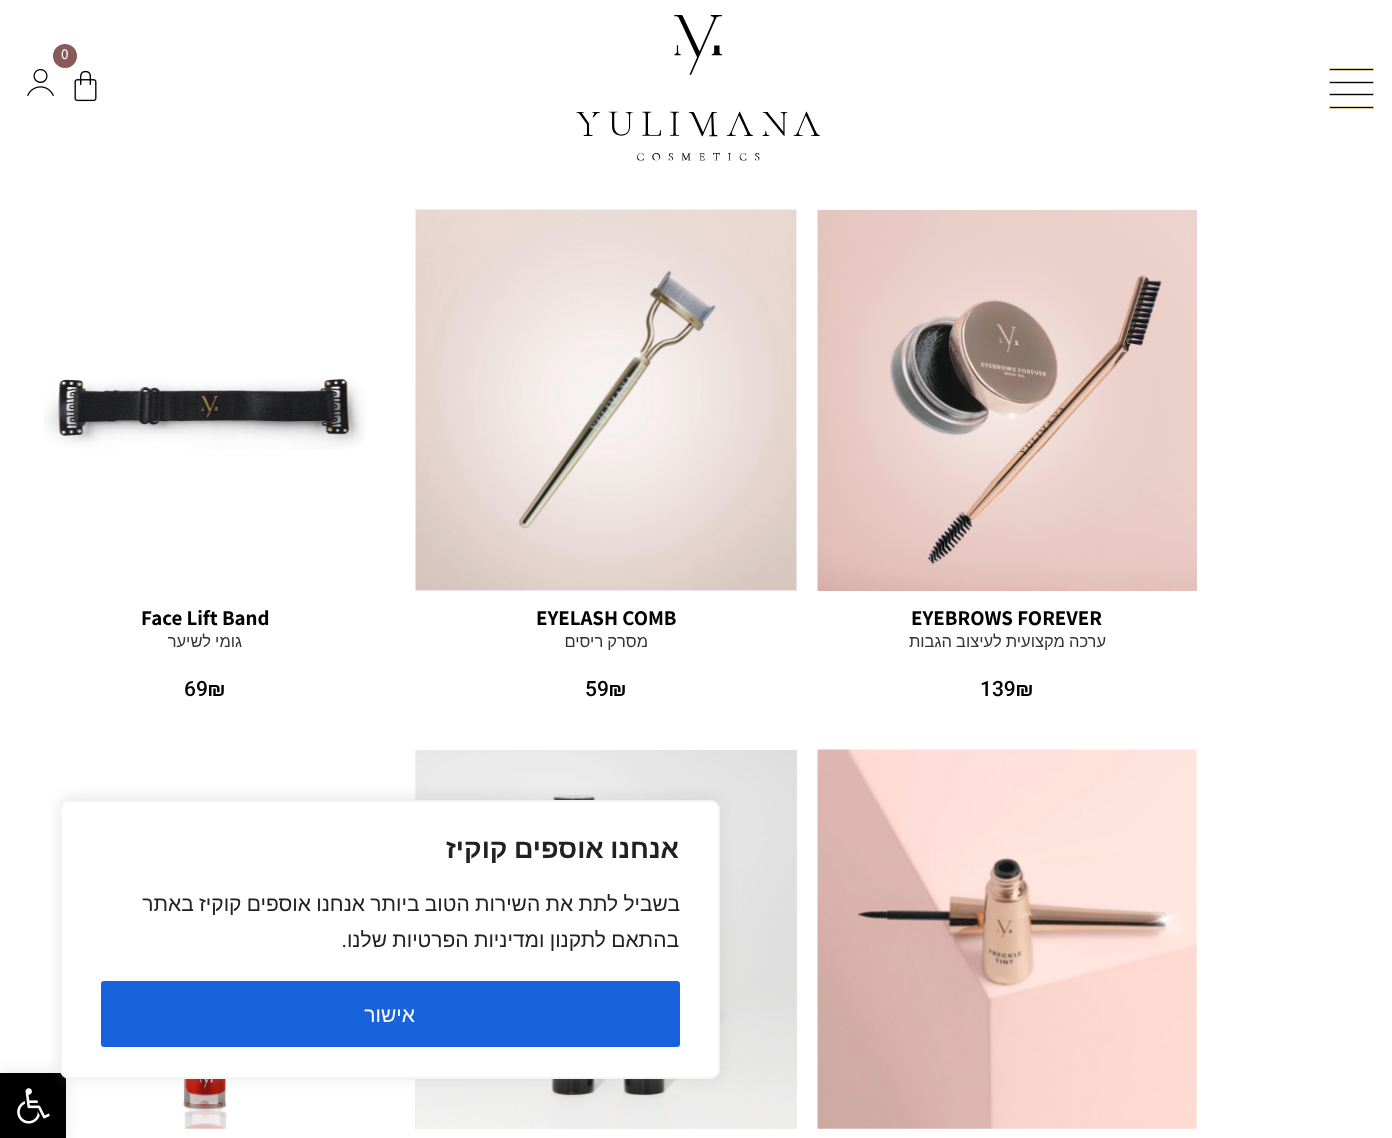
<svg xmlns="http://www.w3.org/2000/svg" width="1392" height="1138">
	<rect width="100%" height="100%" fill="#FFFFFF" />
	<image x="576" y="15" width="244" height="146" href="assets/img1.png" />
	<circle cx="65" cy="56" r="12" fill="#89595A" />
	<text x="61" y="59" font-family="Assistant" font-size="15" font-weight="500" fill="#FFFFFF">0</text>
	<image x="74" y="70" width="23" height="32" href="assets/img2.png" />
	<image x="27" y="69" width="27" height="27" href="assets/img3.png" />
	<rect x="1329.5" y="68.5" width="44" height="2" fill="#000000" stroke="#D6CFAA" />
	<rect x="1329.5" y="81.5" width="44" height="2" fill="#000000" stroke="#D6CFAA" />
	<rect x="1329.5" y="93.5" width="44" height="2" fill="#000000" stroke="#D6CFAA" />
	<rect x="1329.5" y="106.5" width="44" height="2" fill="#000000" stroke="#D6CFAA" />
	<image x="817" y="210" width="380" height="381" href="assets/img4.png" />
	<text x="911" y="625" font-family="Assistant" font-size="21" font-weight="700" fill="#000000">EYEBROWS FOREVER</text>
	<text x="1106" y="647" word-spacing="-0.5" font-family="Liberation Sans" font-size="16.5" direction="rtl" fill="#333333">ערכה מקצועית לעיצוב הגבות</text>
	<text x="980" y="696" font-family="Roboto" font-size="21" font-weight="500" fill="#000000">139₪</text>
	<image x="415" y="209" width="382" height="382" href="assets/img5.png" />
	<text x="536" y="625" font-family="Assistant" font-size="21" font-weight="700" fill="#000000">EYELASH COMB</text>
	<text x="648" y="647" word-spacing="-0.5" font-family="Liberation Sans" font-size="16.5" direction="rtl" fill="#333333">מסרק ריסים</text>
	<text x="585" y="696" font-family="Roboto" font-size="21" font-weight="500" fill="#000000">59₪</text>
	<image x="44" y="378" width="322" height="72" href="assets/img6.png" />
	<text x="141" y="625" font-family="Assistant" font-size="21" font-weight="700" fill="#000000">Face Lift Band</text>
	<text x="242" y="647" word-spacing="-0.5" font-family="Liberation Sans" font-size="16.5" direction="rtl" fill="#333333">גומי לשיער</text>
	<text x="184" y="696" font-family="Roboto" font-size="21" font-weight="500" fill="#000000">69₪</text>
	<image x="817" y="749" width="380" height="380" href="assets/img7.png" />
	<image x="416" y="750" width="381" height="379" href="assets/img8.png" />
	<image x="415" y="750" width="1" height="379" href="assets/img9.png" />
	<image x="119" y="1079" width="172" height="50" href="assets/img10.png" />
	<rect x="0" y="1073" width="66" height="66" fill="#000000" fill-opacity="0.1" filter="blur(7.5px)" />
	<rect x="0" y="1073" width="66" height="65" fill="#000000" />
	<image x="17" y="1088" width="33" height="36" href="assets/img11.png" />
	<rect x="60" y="798" width="660" height="279" rx="9" fill="#ACABAB" fill-opacity="0.3" filter="blur(7.5px)" />
	<rect x="61" y="801" width="658" height="277" rx="8" fill="#FFFFFF" stroke="#F4F4F4" stroke-width="2" />
	<text x="679" y="858" word-spacing="-1" font-family="Liberation Sans" font-size="27" font-weight="700" direction="rtl" fill="#212121">אנחנו אוספים קוקיז</text>
	<g font-family="Liberation Sans" font-size="21" direction="rtl" fill="#212121">
		<text x="680" y="911" word-spacing="-0.6">בשביל לתת את השירות הטוב ביותר אנחנו אוספים קוקיז באתר</text>
		<text x="679" y="947" word-spacing="-0.6">בהתאם לתקנון ומדיניות הפרטיות שלנו</text>
	</g>
	<text x="347" y="947" font-family="Roboto" font-size="21" direction="rtl" fill="#212121">.</text>
	<rect x="102.5" y="982.5" width="576" height="63" rx="1.5" fill="#1863DC" stroke="#1863DC" stroke-width="3" />
	<text x="415" y="1022" font-family="Liberation Sans" font-size="21" direction="rtl" fill="#FFFFFF">אישור</text>
</svg>
